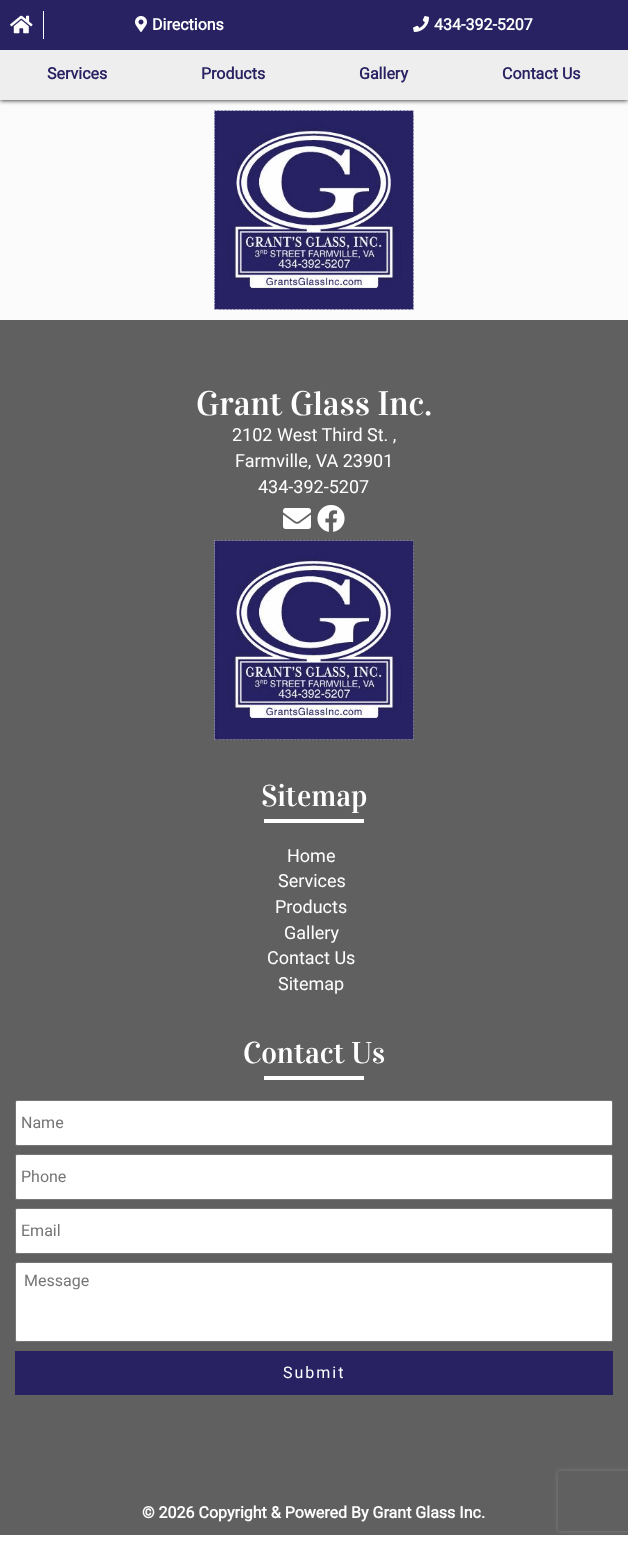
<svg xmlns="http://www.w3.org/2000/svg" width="628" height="1545">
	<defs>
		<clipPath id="clip1"><path d="M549 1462H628V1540H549ZM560 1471H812C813 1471 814 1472 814 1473V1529C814 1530 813 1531 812 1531H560C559 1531 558 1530 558 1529V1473C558 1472 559 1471 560 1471Z" clip-rule="evenodd" /></clipPath>
	</defs>
	<rect width="100%" height="100%" fill="#FFFFFF" />
	<rect x="0" y="100" width="628" height="220" fill="#FBFBFB" />
	<rect x="0" y="50" width="628" height="50" fill="#000000" filter="blur(2.5px)" />
	<rect x="0" y="0" width="628" height="50" fill="#282262" />
	<rect x="43" y="11" width="1" height="28" fill="#FFFFFF" />
	<image x="10" y="15" width="23" height="19" href="assets/img1.png" />
	<image x="135" y="16" width="12" height="16" href="assets/img2.png" />
	<text x="152" y="30" font-family="Roboto" font-size="16" font-weight="700" fill="#FFFFFF">Directions</text>
	<image x="413" y="16" width="16" height="16" href="assets/img3.png" />
	<text x="434" y="30" font-family="Roboto" font-size="16" font-weight="700" fill="#FFFFFF">434-392-5207</text>
	<image x="214" y="110" width="200" height="200" href="assets/img4.png" />
	<rect x="0" y="50" width="628" height="50" fill="#EEEEEE" />
	<g font-family="Roboto" font-size="16" font-weight="700" fill="#282262">
		<text x="47" y="79">Services</text>
		<text x="201" y="79">Products</text>
		<text x="359" y="79">Gallery</text>
		<text x="502" y="79">Contact Us</text>
	</g>
	<rect x="0" y="320" width="628" height="1215" fill="#606060" />
	<text x="196" y="415" font-family="Vidaloka" font-size="34" fill="#FFFFFF">Grant Glass Inc.</text>
	<g font-family="Roboto" font-size="18" fill="#FFFFFF">
		<text x="232" y="441">2102 West Third St. ,</text>
		<text x="235" y="467">Farmville, VA 23901</text>
		<text x="258" y="493">434-392-5207</text>
	</g>
	<image x="283" y="508" width="28" height="21" href="assets/img5.png" />
	<image x="317" y="505" width="28" height="27" href="assets/img6.png" />
	<image x="214" y="540" width="200" height="200" href="assets/img7.png" />
	<text x="261" y="806" font-family="Vidaloka" font-size="30" fill="#FFFFFF">Sitemap</text>
	<rect x="264" y="819" width="100" height="4" fill="#FFFFFF" />
	<g font-family="Roboto" font-size="18" fill="#FFFFFF">
		<text x="287" y="862">Home</text>
		<text x="278" y="887">Services</text>
		<text x="275" y="913">Products</text>
		<text x="284" y="939">Gallery</text>
		<text x="267" y="964">Contact Us</text>
		<text x="278" y="990">Sitemap</text>
	</g>
	<text x="243" y="1063" font-family="Vidaloka" font-size="30" fill="#FFFFFF">Contact Us</text>
	<rect x="264" y="1076" width="100" height="4" fill="#FFFFFF" />
	<rect x="15.5" y="1100.5" width="597" height="45" rx="1.5" fill="#FFFFFF" stroke="#767676" />
	<text x="21" y="1128" font-family="Roboto" font-size="16" fill="#757575">Name</text>
	<rect x="15.5" y="1154.5" width="597" height="45" rx="1.5" fill="#FFFFFF" stroke="#767676" />
	<text x="21" y="1182" font-family="Roboto" font-size="16" fill="#757575">Phone</text>
	<rect x="15.5" y="1208.5" width="597" height="45" rx="1.5" fill="#FFFFFF" stroke="#767676" />
	<text x="21" y="1236" font-family="Roboto" font-size="16" fill="#757575">Email</text>
	<rect x="15.5" y="1262.5" width="597" height="79" rx="1.5" fill="#FFFFFF" stroke="#767676" />
	<text x="24" y="1286" font-family="Roboto" font-size="16" fill="#757575">Message</text>
	<g clip-path="url(#clip1)">
		<rect x="558" y="1471" width="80" height="60" rx="2" fill="#808080" filter="blur(2.5px)" />
	</g>
	<rect x="15" y="1351" width="598" height="44" fill="#282262" />
	<text x="283" y="1378" font-family="Roboto" font-size="16" letter-spacing="2" fill="#FFFFFF">Submit</text>
	<text x="142" y="1518" font-family="Roboto" font-size="16" font-weight="700" fill="#FFFFFF">© 2026 Copyright &amp; Powered By Grant Glass Inc.</text>
</svg>
